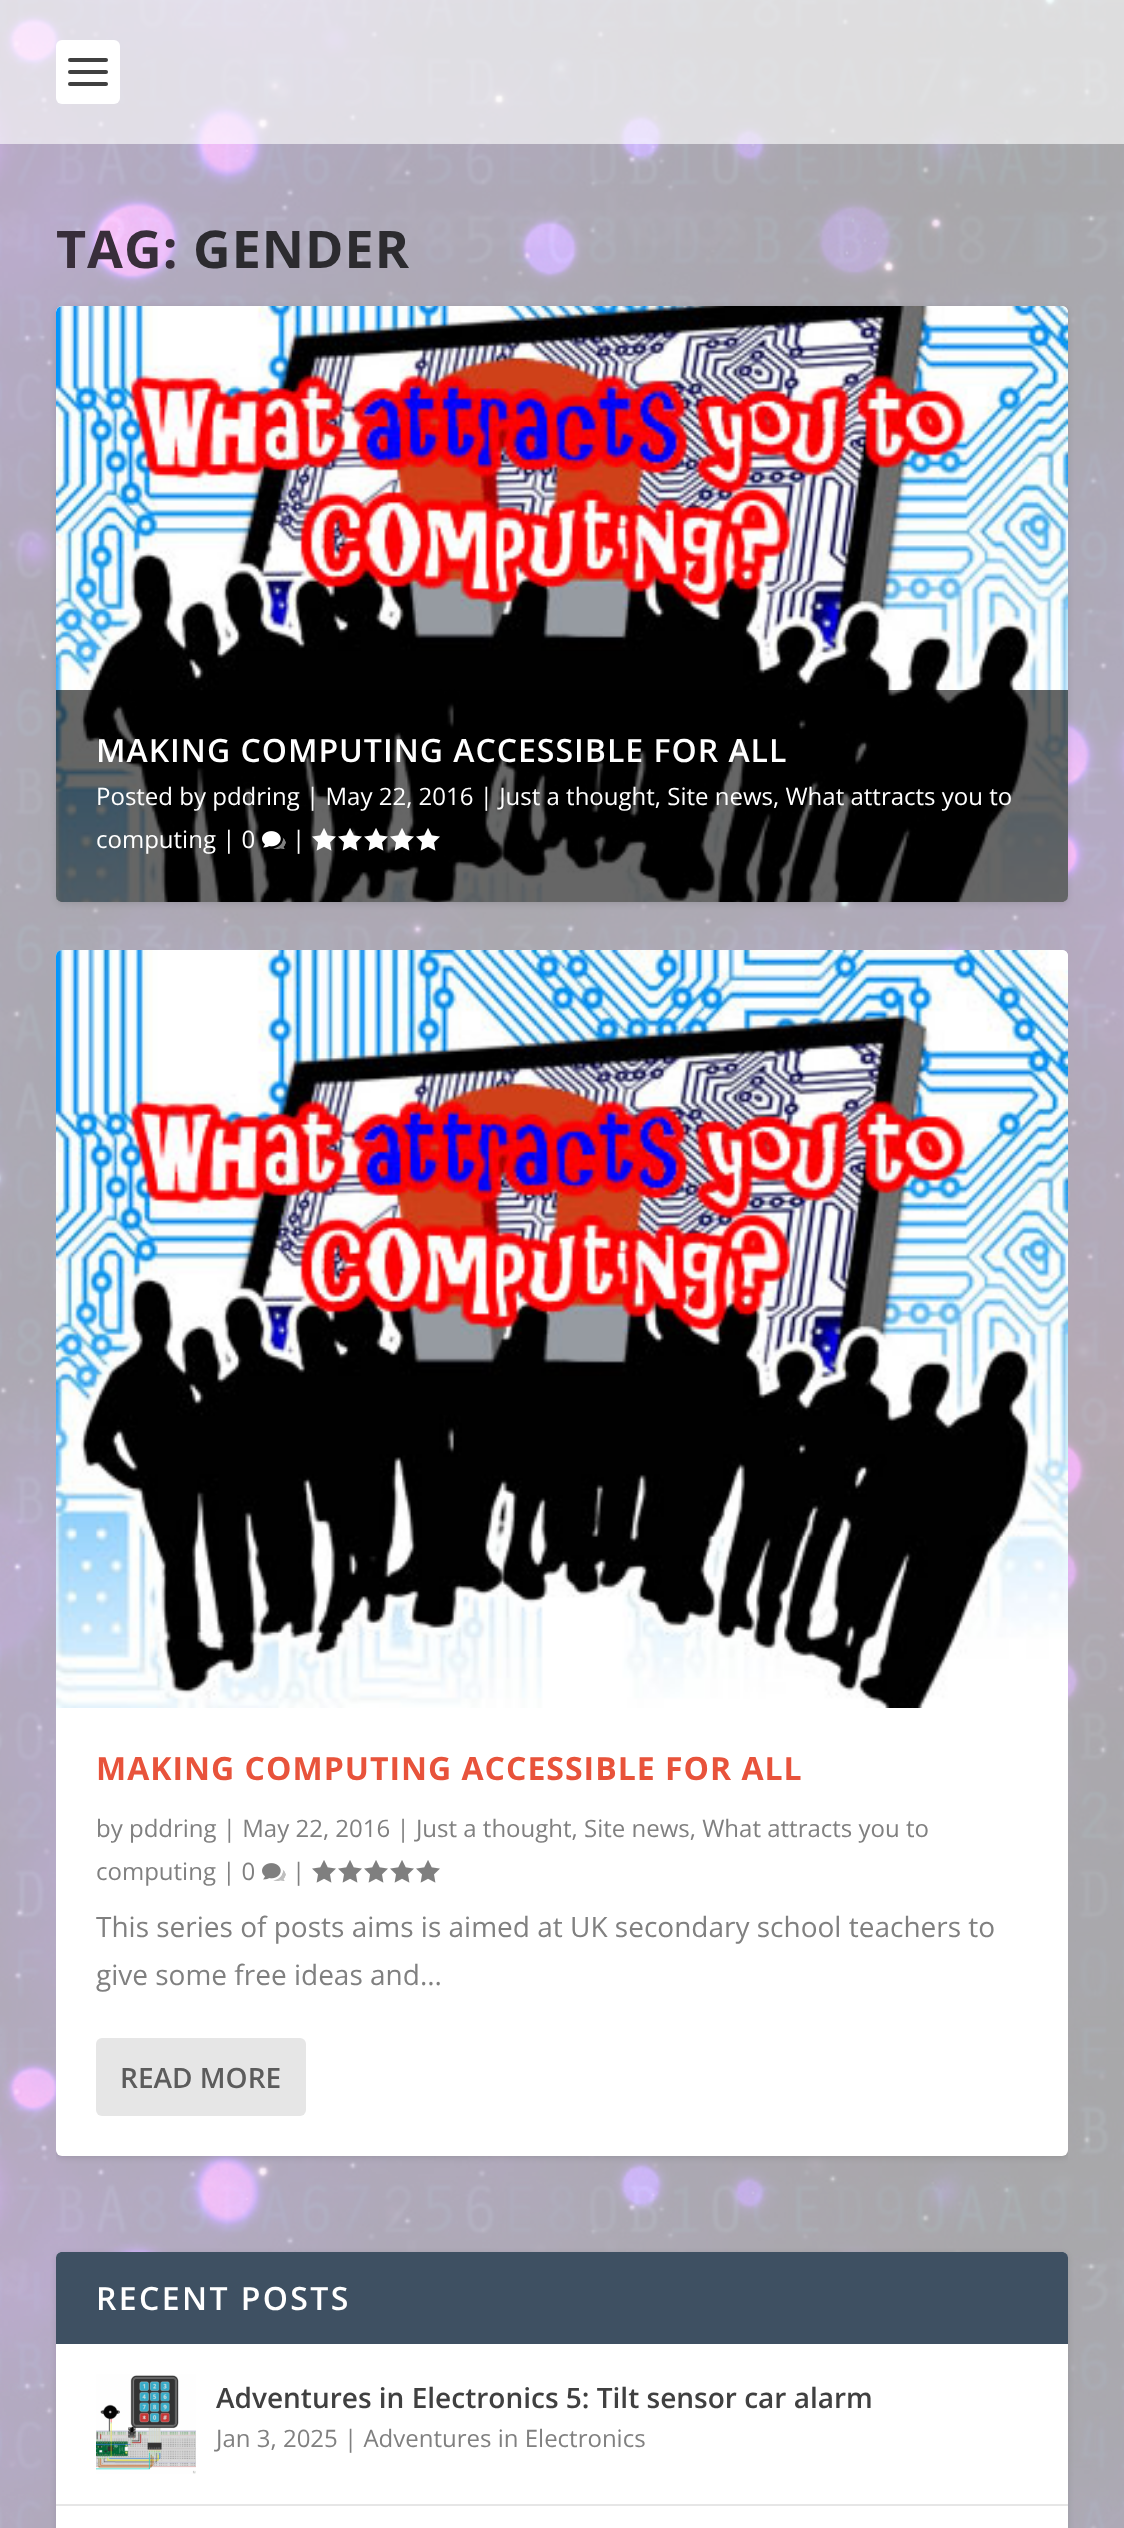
<svg xmlns="http://www.w3.org/2000/svg" width="1124" height="2528">
	<defs>
		<clipPath id="clip1"><rect x="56" y="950" width="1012" height="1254" rx="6" /></clipPath>
	</defs>
	<rect width="100%" height="100%" fill="#FFFFFF" />
	<image x="0" y="0" width="1124" height="2528" href="assets/img1.png" />
	<rect x="0" y="0" width="1124" height="144" fill="#FFFFFF" fill-opacity="0.61" />
	<rect x="56" y="40" width="64" height="64" rx="6" fill="#FFFFFF" />
	<rect x="68" y="58" width="40" height="4" rx="2" fill="#404040" />
	<rect x="68" y="70" width="40" height="4" rx="2" fill="#404040" />
	<rect x="68" y="82" width="40" height="4" rx="2" fill="#404040" />
	<text x="56" y="268" font-family="Open Sans" font-size="52" font-weight="700" letter-spacing="1" fill="#382E3A">TAG:</text>
	<text x="193" y="268" font-family="Open Sans" font-size="52" font-weight="700" letter-spacing="1" fill="#2C2B2F">GENDER</text>
	<rect x="56" y="308" width="1012" height="596" rx="6" fill="#000000" fill-opacity="0.1" filter="blur(3px)" />
	<rect x="56" y="306" width="1012" height="596" rx="6" fill="#FFFFFF" />
	<image x="56" y="306" width="1012" height="596" href="assets/img2.png" />
	<path d="M56 690H1068V896C1068 899.5 1065.5 902 1062 902H62C58.5 902 56 899.5 56 896Z" fill="#000000" fill-opacity="0.6" />
	<text x="96" y="762" font-family="Open Sans" font-size="32" font-weight="600" letter-spacing="1" fill="#FFFFFF">MAKING COMPUTING ACCESSIBLE FOR ALL</text>
	<g font-family="Open Sans" font-size="24" fill="#FFFFFF">
		<text x="96" y="805">Posted by pddring | May 22, 2016 | Just a thought, Site news, What attracts you to</text>
		<text x="96" y="848">computing | 0</text>
	</g>
	<image x="262" y="831" width="24" height="19" href="assets/img3.png" />
	<text x="292" y="848" font-family="Open Sans" font-size="24" fill="#FFFFFF">|</text>
	<image x="312" y="828" width="24" height="23" href="assets/img4.png" />
	<image x="338" y="828" width="24" height="23" href="assets/img5.png" />
	<image x="364" y="828" width="24" height="23" href="assets/img6.png" />
	<image x="390" y="828" width="24" height="23" href="assets/img7.png" />
	<image x="416" y="828" width="24" height="23" href="assets/img8.png" />
	<g clip-path="url(#clip1)">
		<rect x="56" y="952" width="1012" height="1206" rx="6" fill="#000000" fill-opacity="0.1" filter="blur(3px)" />
	</g>
	<rect x="56" y="950" width="1012" height="1206" rx="6" fill="#FFFFFF" />
	<image x="56" y="950" width="1012" height="758" href="assets/img9.png" />
	<text x="96" y="1780" font-family="Open Sans" font-size="32" font-weight="700" letter-spacing="1" fill="#E8533B">MAKING COMPUTING ACCESSIBLE FOR ALL</text>
	<g font-family="Open Sans" font-size="24" fill="#808080">
		<text x="96" y="1837">by pddring | May 22, 2016 | Just a thought, Site news, What attracts you to</text>
		<text x="96" y="1880">computing | 0</text>
	</g>
	<image x="262" y="1863" width="24" height="18" href="assets/img10.png" />
	<text x="292" y="1880" font-family="Open Sans" font-size="24" fill="#808080">|</text>
	<image x="312" y="1860" width="24" height="23" href="assets/img11.png" />
	<image x="338" y="1860" width="24" height="23" href="assets/img11.png" />
	<image x="364" y="1860" width="24" height="23" href="assets/img11.png" />
	<image x="390" y="1860" width="24" height="23" href="assets/img11.png" />
	<image x="416" y="1860" width="24" height="23" href="assets/img11.png" />
	<g font-family="Open Sans" font-size="28" fill="#808080">
		<text x="96" y="1937">This series of posts aims is aimed at UK secondary school teachers to</text>
		<text x="96" y="1985">give some free ideas and...</text>
	</g>
	<rect x="96" y="2038" width="210" height="78" rx="6" fill="#E6E6E6" />
	<text x="120" y="2088" font-family="Open Sans" font-size="28" font-weight="600" fill="#5C5C5C">READ MORE</text>
	<rect x="56" y="2254" width="1012" height="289" rx="6" fill="#000000" fill-opacity="0.1" filter="blur(3px)" />
	<rect x="56" y="2252" width="1012" height="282" rx="6" fill="#FFFFFF" />
	<path d="M62 2252H1062C1065.5 2252 1068 2254.5 1068 2258V2344H56V2258C56 2254.5 58.5 2252 62 2252Z" fill="#3E5062" />
	<text x="96" y="2310" font-family="Open Sans" font-size="32" font-weight="600" letter-spacing="2.4" fill="#FFFFFF">RECENT POSTS</text>
	<rect x="56" y="2504" width="1012" height="2" fill="#E6E6E6" />
	<image x="96" y="2374" width="100" height="100" href="assets/img12.png" />
	<text x="216" y="2408" font-family="Open Sans" font-size="28" font-weight="600" fill="#404040">Adventures in Electronics 5: Tilt sensor car alarm</text>
	<text x="216" y="2447" font-family="Open Sans" font-size="24" fill="#808080">Jan 3, 2025 | Adventures in Electronics</text>
</svg>
